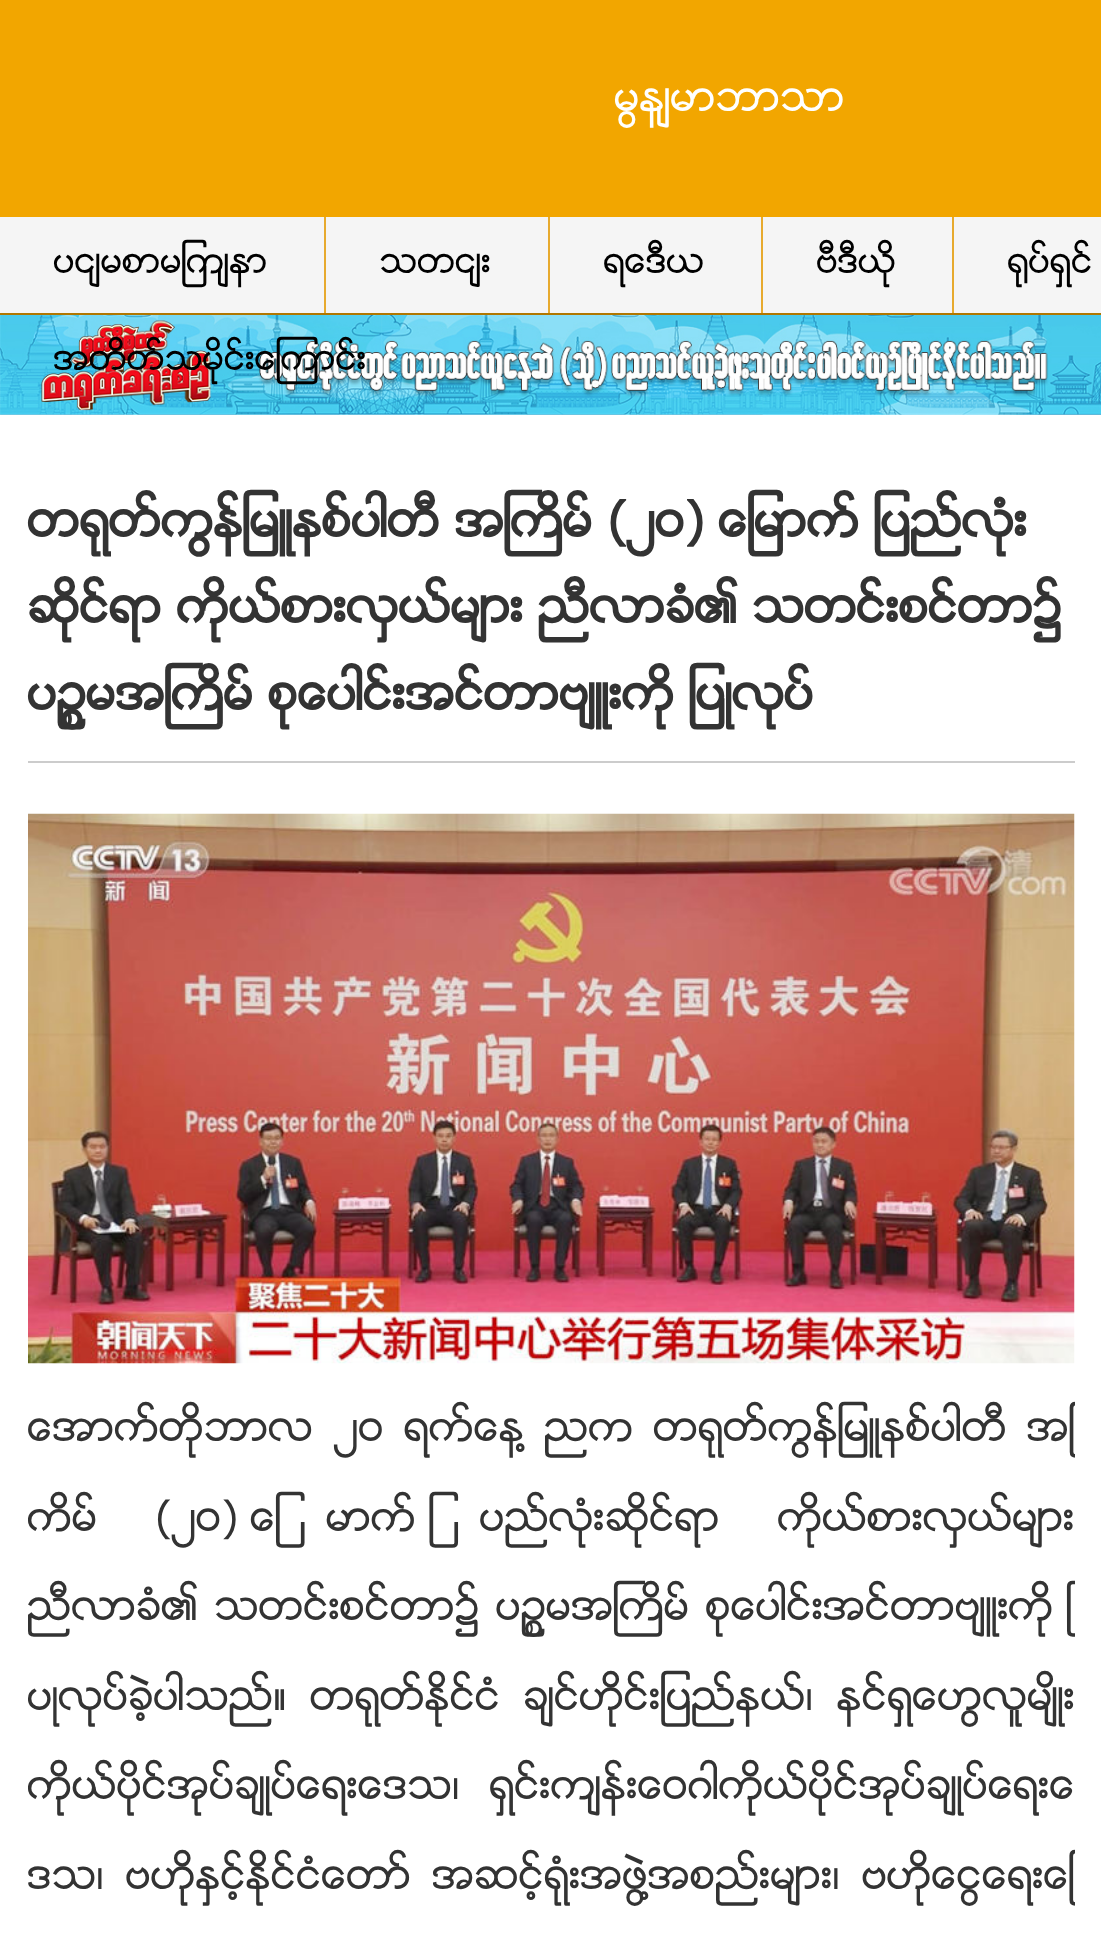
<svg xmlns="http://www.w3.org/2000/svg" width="1101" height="1936">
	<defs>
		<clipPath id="clip1"><rect x="28" y="791" width="1047" height="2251" /></clipPath>
	</defs>
	<rect width="100%" height="100%" fill="#FFFFFF" />
	<rect x="0" y="0" width="1101" height="217" fill="#F2A600" />
	<text x="615" y="111" font-family="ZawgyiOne" font-size="41.35" fill="#FFFFFF">မြန်မာဘာသာ</text>
	<rect x="0" y="217" width="1101" height="96" fill="#F5F5F5" />
	<rect x="0" y="313" width="1101" height="2" fill="#B17700" />
	<rect x="324" y="217" width="2" height="96" fill="#E7AA2E" />
	<text x="54" y="273" font-family="ZawgyiOne" font-size="35" fill="#000000">ပင်မစာမျက်နာ</text>
	<rect x="548" y="217" width="2" height="96" fill="#E7AA2E" />
	<text x="380" y="273" font-family="ZawgyiOne" font-size="35" fill="#000000">သတင်း</text>
	<rect x="761" y="217" width="2" height="96" fill="#E7AA2E" />
	<text x="604" y="273" font-family="ZawgyiOne" font-size="35" fill="#000000">ရေဒီယ</text>
	<rect x="952" y="217" width="2" height="96" fill="#E7AA2E" />
	<g font-family="ZawgyiOne" font-size="35" fill="#000000">
		<text x="817" y="273">ဗီဒီယို</text>
		<text x="1008" y="273">႐ုပ္ရွင္</text>
	</g>
	<image x="0" y="315" width="1101" height="100" href="assets/img1.png" />
	<text x="54" y="370" font-family="ZawgyiOne" font-size="35" fill="#000000">အတိတ္သမိုင္းေၾကာင္း</text>
	<rect x="28" y="761" width="1047" height="2" fill="#CCCCCC" />
	<g font-family="ZawgyiOne" font-size="48.25" font-weight="700" fill="#333333">
		<text x="28" y="537">တရုတ္ကြန္ျမဴနစ္ပါတီ အႀကိမ္ (၂၀) ေျမာက္ ျပည္လံုး</text>
		<text x="28" y="623">ဆိုင္ရာ ကိုယ္စားလွယ္မ်ား ညီလာခံ၏ သတင္းစင္တာ၌</text>
		<text x="28" y="710">ပဥၥမအႀကိမ္ စုေပါင္းအင္တာဗ်ဴးကို ျပဳလုပ္</text>
	</g>
	<image x="28" y="813" width="1047" height="551" href="assets/img2.png" />
	<g clip-path="url(#clip1)">
		<g font-family="ZawgyiOne" font-size="41.35" fill="#333333">
			<text x="28" y="1441" word-spacing="7.25">ေအာက္တုိဘာလ ၂၀ ရက္ေန႔ ညက တရုတ္ကြန္ျမဴနစ္ပါတီ အႀ</text>
			<text x="28" y="1531" word-spacing="45">ကိမ္ (၂၀) ေျမာက္ ျပည္လံုးဆိုင္ရာ ကိုယ္စားလွယ္မ်ား</text>
			<text x="28" y="1620" word-spacing="3.5">ညီလာခံ၏ သတင္းစင္တာ၌ ပဥၥမအႀကိမ္ စုေပါင္းအင္တာဗ်ဴးကို ျ</text>
			<text x="28" y="1710" word-spacing="10">ပဳလုပ္ခဲ့ပါသည္။ တရုတ္ႏိုင္ငံ ခ်င္ဟိုင္းျပည္နယ္၊ နင္ရွေဟြလူမ်ိဳး</text>
			<text x="28" y="1799" word-spacing="16">ကိုယ္ပိုင္အုပ္ခ်ဳပ္ေရးေဒသ၊ ရွင္းက်န္းေဝဂါကိုယ္ပိုင္အုပ္ခ်ဳပ္ေရးေ</text>
			<text x="28" y="1889" word-spacing="8">ဒသ၊ ဗဟိုႏွင့္ႏိုင္ငံေတာ္ အဆင့္ရံုးအဖြဲ႔အစည္းမ်ား၊ ဗဟိုေငြေရးေၾ</text>
		</g>
	</g>
</svg>
